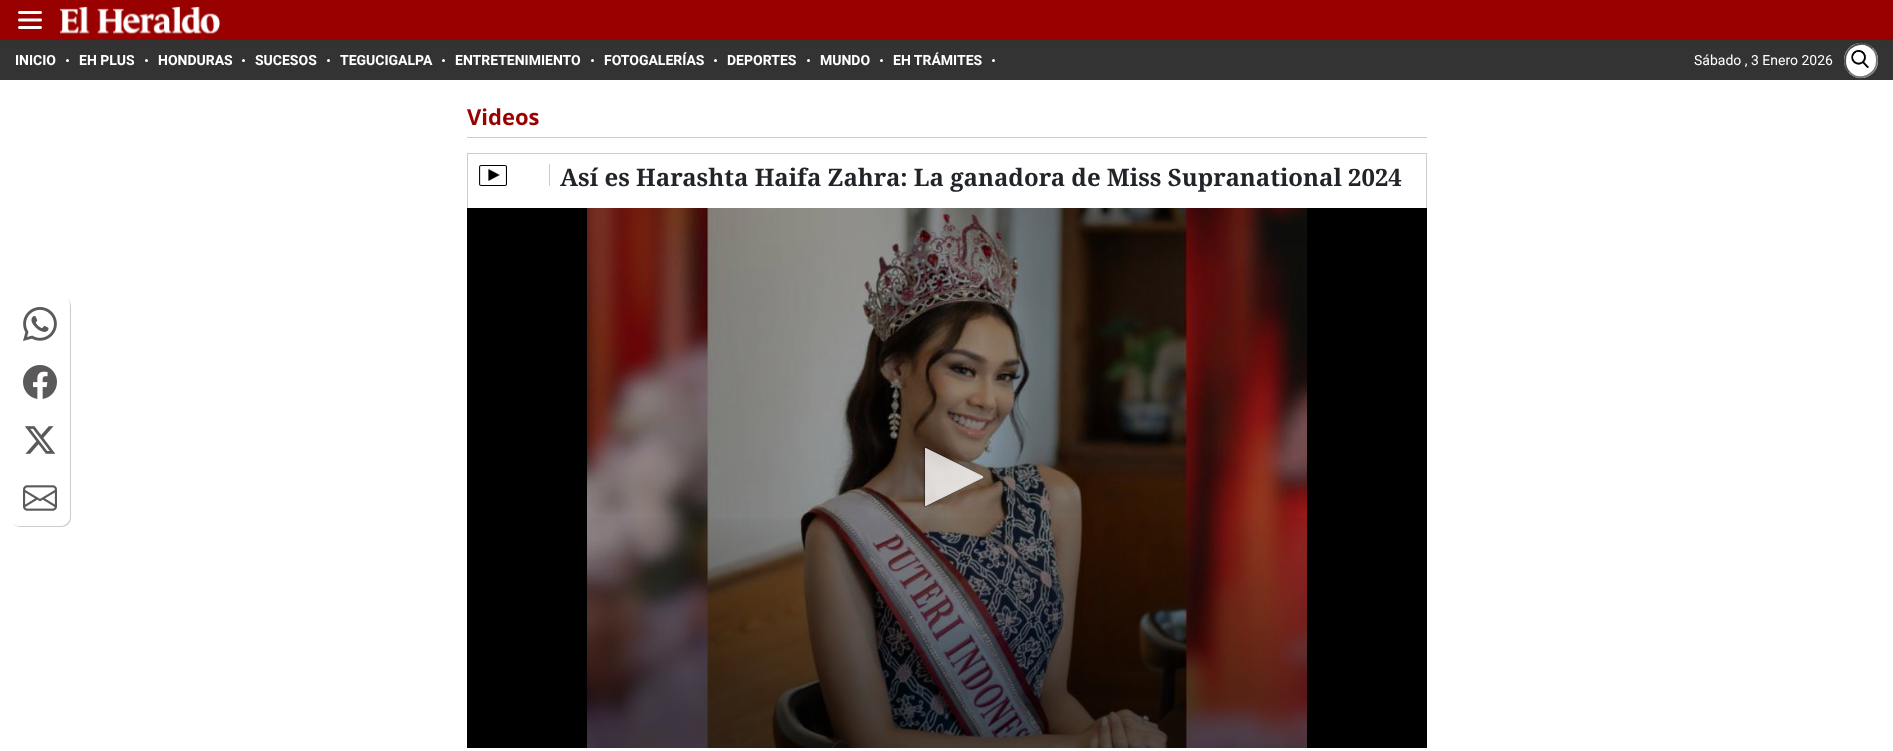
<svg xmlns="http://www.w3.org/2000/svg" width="1893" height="751">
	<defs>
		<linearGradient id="g1" gradientUnits="userSpaceOnUse" x1="947" y1="508" x2="947" y2="748"><stop offset="0" stop-color="#000000" stop-opacity="0" /><stop offset="0.77" stop-color="#000000" stop-opacity="0.4" /><stop offset="1" stop-color="#000000" stop-opacity="0.4" /></linearGradient>
	</defs>
	<rect width="100%" height="100%" fill="#FFFFFF" />
	<rect x="0" y="40" width="1893" height="40" fill="#333333" />
	<rect x="1844" y="43" width="34" height="35" rx="17" fill="#FFFFFF" />
	<image x="1851" y="50" width="18" height="18" href="assets/img3.png" />
	<path d="M1872.5 48.5C1875.5 51.5 1877 55.5 1877 60C1877.5 74.5 1860 83 1849.5 72.5" fill="none" stroke="#767676" stroke-width="2" />
	<path d="M1849.5 72.5C1846.5 69.5 1845 65.5 1845 61C1844.5 46.5 1862 38 1872.5 48.5" fill="none" stroke="#4F4F4F" stroke-width="2" />
	<rect x="0" y="1" width="1893" height="40" fill="#333333" filter="blur(2.5px)" />
	<rect x="0" y="0" width="1893" height="40" fill="#990000" />
	<image x="18" y="11" width="24" height="18" href="assets/img1.png" />
	<image x="60" y="6" width="160" height="28" href="assets/img2.png" />
	<text x="15" y="65" font-family="Roboto" font-size="14" font-weight="700" fill="#FFFFFF">INICIO</text>
	<circle cx="67.5" cy="60.5" r="1.5" fill="#FFFFFF" />
	<text x="79" y="65" font-family="Roboto" font-size="14" font-weight="700" fill="#FFFFFF">EH PLUS</text>
	<circle cx="146.5" cy="60.5" r="1.5" fill="#FFFFFF" />
	<text x="158" y="65" font-family="Roboto" font-size="14" font-weight="700" fill="#FFFFFF">HONDURAS</text>
	<circle cx="243.5" cy="60.5" r="1.5" fill="#FFFFFF" />
	<text x="255" y="65" font-family="Roboto" font-size="14" font-weight="700" fill="#FFFFFF">SUCESOS</text>
	<circle cx="328.5" cy="60.5" r="1.5" fill="#FFFFFF" />
	<text x="340" y="65" font-family="Roboto" font-size="14" font-weight="700" fill="#FFFFFF">TEGUCIGALPA</text>
	<circle cx="443.5" cy="60.5" r="1.5" fill="#FFFFFF" />
	<text x="455" y="65" font-family="Roboto" font-size="14" font-weight="700" fill="#FFFFFF">ENTRETENIMIENTO</text>
	<circle cx="592.5" cy="60.5" r="1.5" fill="#FFFFFF" />
	<text x="604" y="65" font-family="Roboto" font-size="14" font-weight="700" fill="#FFFFFF">FOTOGALERÍAS</text>
	<circle cx="715.5" cy="60.5" r="1.5" fill="#FFFFFF" />
	<text x="727" y="65" font-family="Roboto" font-size="14" font-weight="700" fill="#FFFFFF">DEPORTES</text>
	<circle cx="808.5" cy="60.5" r="1.5" fill="#FFFFFF" />
	<text x="820" y="65" font-family="Roboto" font-size="14" font-weight="700" fill="#FFFFFF">MUNDO</text>
	<circle cx="881.5" cy="60.5" r="1.5" fill="#FFFFFF" />
	<text x="893" y="65" font-family="Roboto" font-size="14" font-weight="700" fill="#FFFFFF">EH TRÁMITES</text>
	<circle cx="993.5" cy="60.5" r="1.5" fill="#FFFFFF" />
	<text x="1694" y="65" font-family="Roboto" font-size="14" fill="#FFFFFF">Sábado , 3 Enero 2026</text>
	<rect x="467" y="137" width="960" height="1" fill="#CCCCCC" />
	<text x="467" y="125" font-family="Noto Sans" font-size="22" font-weight="700" fill="#990000">Videos</text>
	<rect x="467" y="153" width="960" height="1" fill="#CCCCCC" />
	<rect x="1426" y="153" width="1" height="55" fill="#CCCCCC" />
	<rect x="467" y="153" width="1" height="55" fill="#CCCCCC" />
	<image x="479" y="165" width="28" height="21" href="assets/img4.png" />
	<rect x="549" y="164" width="1" height="22" fill="#CCCCCC" />
	<text x="560" y="186" font-family="Noto Serif" font-size="24" font-weight="700" fill="#212529">Así es Harashta Haifa Zahra: La ganadora de Miss Supranational 2024</text>
	<path d="M13 524C15 526 18 527 21 527H61C67 527 71 523 71 517V307C71 304 70 301 68 299C69 301 70 303 70 306V516C70 522 66 526 60 526H20C17 526 15 525 13 524Z" fill="#CCCCCC" />
	<rect x="10" y="296" width="60" height="230" rx="10" fill="#FFFFFF" />
	<image x="23" y="307" width="34" height="34" href="assets/img5.png" />
	<image x="23" y="365" width="34" height="34" href="assets/img6.png" />
	<image x="24" y="426" width="32" height="28" href="assets/img7.png" />
	<image x="23" y="485" width="34" height="26" href="assets/img8.png" />
	<rect x="467" y="208" width="960" height="540" fill="#000000" />
	<image x="587" y="208" width="720" height="540" href="assets/img9.png" />
	<path d="M926 506H924.5V448.5L925.5 447.5L983 476.5C983.5 476.5 983.5 477 983 477.5Z" fill="none" stroke="#000000" stroke-opacity="0.3" stroke-width="1.6" />
	<path d="M926 506H925V448H926L983 476C983 477 984 477 983 478Z" fill="#FFFFFF" fill-opacity="0.8" />
	<rect x="587" y="518" width="720" height="230" fill="url(#g1)" />
</svg>
